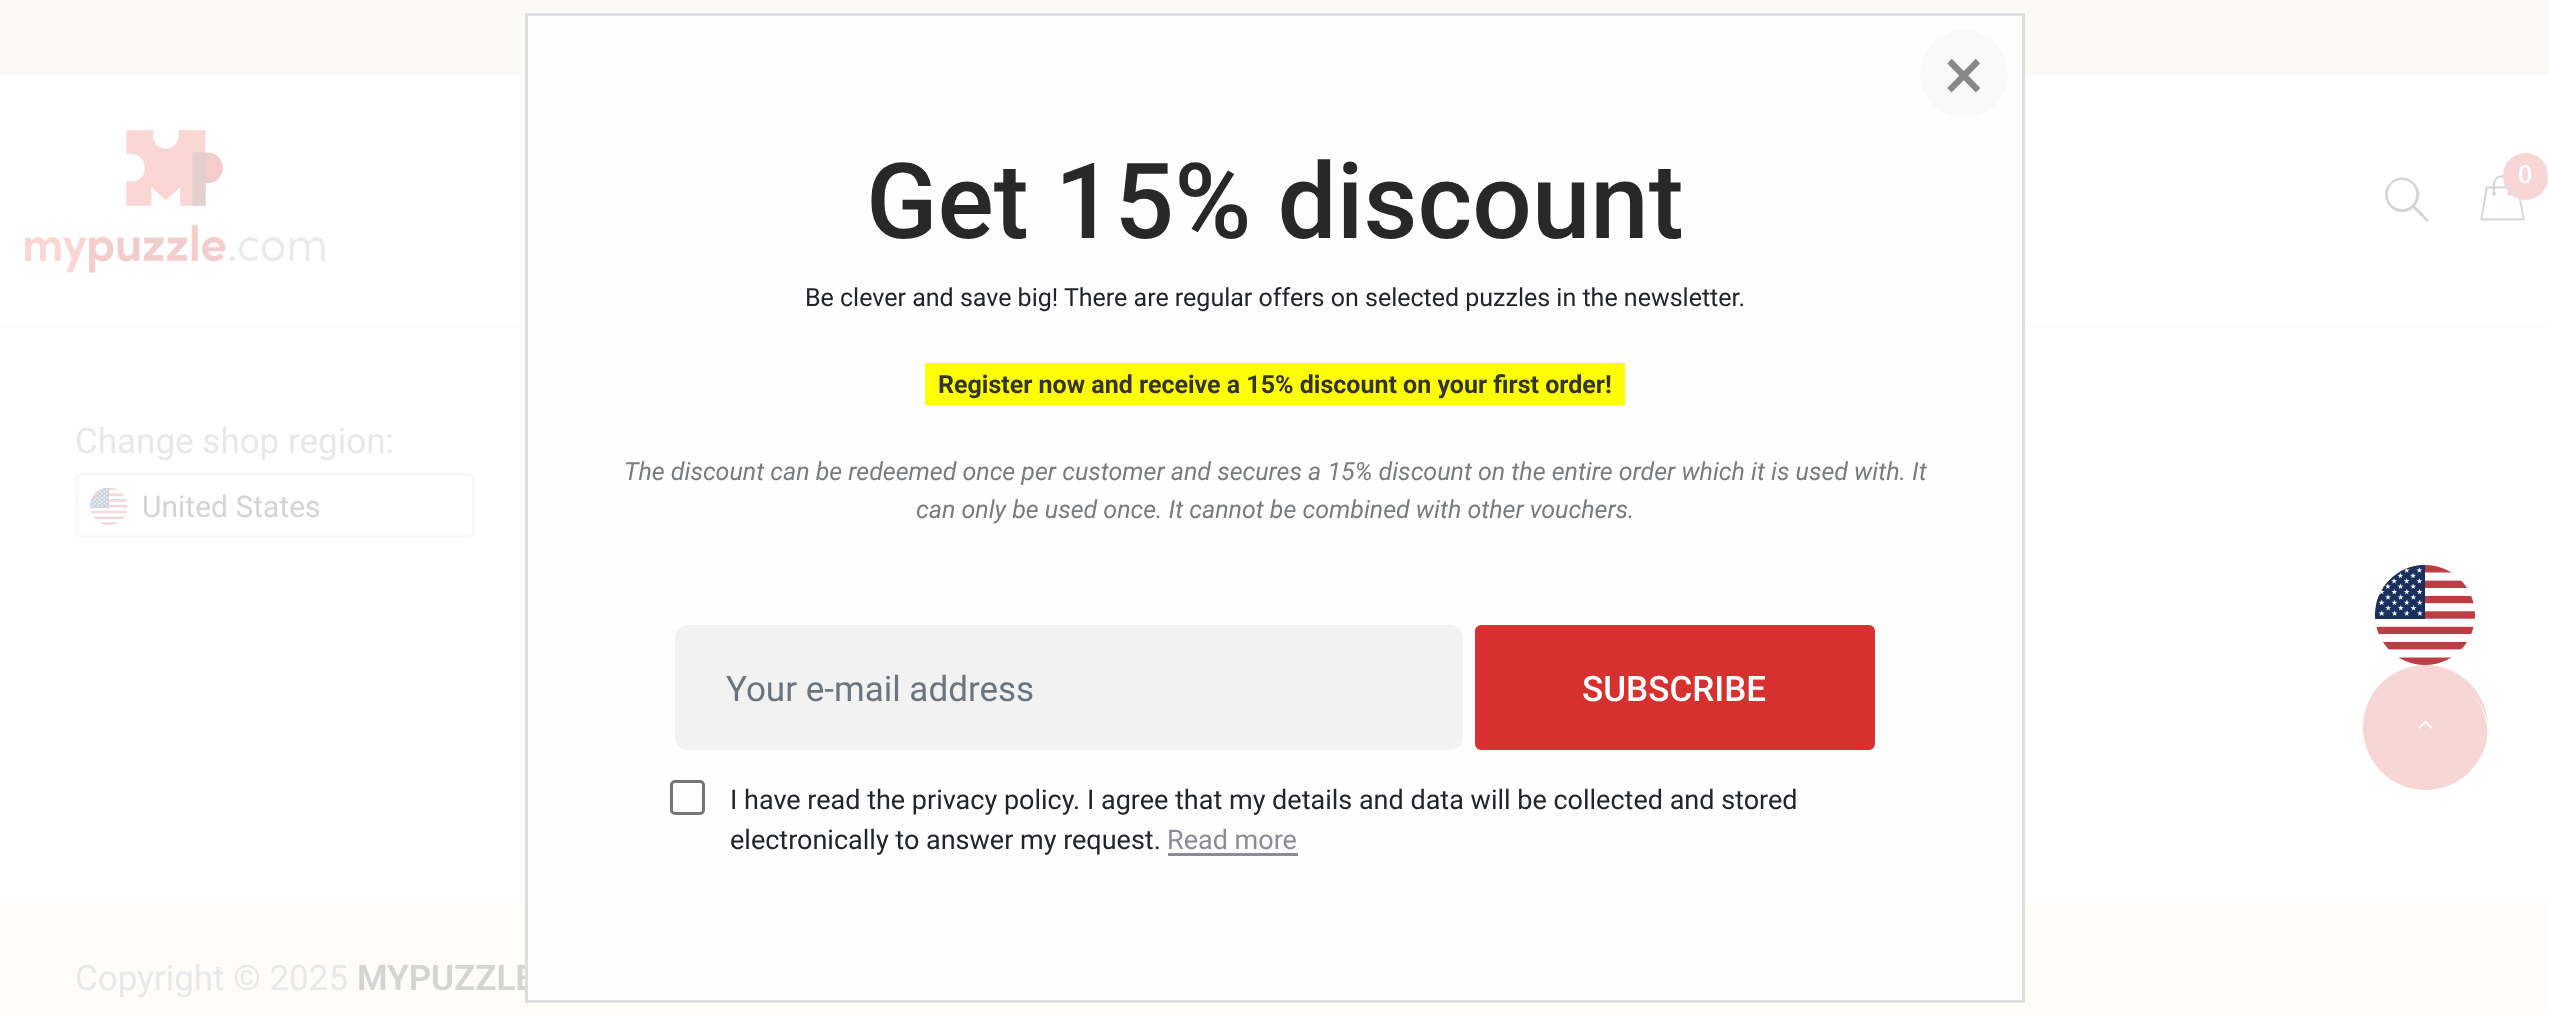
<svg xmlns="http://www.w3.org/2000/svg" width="2549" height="1014">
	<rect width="100%" height="100%" fill="#FFFFFF" />
	<rect x="0" y="0" width="2549" height="75" fill="#FBFAF7" />
	<rect x="0" y="325" width="2549" height="3" fill="#FCFCFC" />
	<rect x="0" y="903" width="2549" height="111" fill="#FDFCF9" />
	<text x="357" y="990" font-family="Roboto" font-size="35" font-weight="600" fill="#D4D4D5">MYPUZZLE</text>
	<rect x="526.5" y="14.5" width="1497" height="987" fill="#FEFEFE" stroke="#DEDEDE" stroke-width="3" />
	<circle cx="1964" cy="74" r="44" fill="#F9F9F9" />
	<text x="1944" y="100" font-family="Roboto" font-size="75" fill="#888888">×</text>
	<text x="866" y="238" font-family="Roboto" font-size="105" font-weight="500" fill="#282828">Get 15% discount</text>
	<text x="805" y="306" font-family="Roboto" font-size="25" fill="#212529">Be clever and save big! There are regular offers on selected puzzles in the newsletter.</text>
	<rect x="925" y="363" width="700" height="42" fill="#FFFF00" />
	<text x="938" y="393" font-family="Roboto" font-size="25" font-weight="700" fill="#333333">Register now and receive a 15% discount on your first order!</text>
	<g font-family="Roboto" font-size="25" font-style="italic" fill="#797C7E">
		<text x="624" y="480">The discount can be redeemed once per customer and secures a 15% discount on the entire order which it is used with. It</text>
		<text x="916" y="518">can only be used once. It cannot be combined with other vouchers.</text>
	</g>
	<rect x="675" y="625" width="788" height="125" rx="13" fill="#F2F2F2" />
	<text x="726" y="701" font-family="Roboto" font-size="35" fill="#6C757D">Your e-mail address</text>
	<rect x="1476.5" y="626.5" width="397" height="122" rx="4.5" fill="#D6312E" stroke="#D6312E" stroke-width="3" />
	<text x="1582" y="701" font-family="Roboto" font-size="35" font-weight="500" fill="#FFFFFF">SUBSCRIBE</text>
	<rect x="671.5" y="781.5" width="32" height="32" rx="3.5" fill="none" stroke="#767676" stroke-width="3" />
	<g font-family="Roboto" font-size="27" fill="#212529">
		<text x="730" y="809">I have read the privacy policy. I agree that my details and data will be collected and stored</text>
		<text x="730" y="849">electronically to answer my request.</text>
	</g>
	<text x="1167" y="849" font-family="Roboto" font-size="27" fill="#8B8B99">Read more</text>
	<rect x="1168" y="853" width="130" height="3" fill="#8B8B99" />
	<image x="25" y="129" width="300" height="144" href="assets/img1.png" />
	<image x="2480" y="175" width="45" height="46" href="assets/img2.png" />
	<rect x="2503" y="153" width="45" height="47" rx="22.5" fill="#F7D6D5" />
	<text x="2518" y="183" font-family="Roboto" font-size="25" font-weight="500" fill="#FFFFFF">0</text>
	<path d="M2429 220L2415 206C2429 190 2406 167 2390 183C2375 198 2397 222 2413 208L2427 222ZM2402 209C2383 209 2383 180 2402 180C2421 180 2421 209 2402 209Z" fill="#D4D4D5" />
	<text x="75" y="453" font-family="Roboto" font-size="35" fill="#E8E8EB">Change shop region:</text>
	<rect x="76.5" y="474.5" width="397" height="62" rx="4.5" fill="none" stroke="#F8F8F8" stroke-width="3" />
	<image x="90" y="488" width="38" height="37" href="assets/img3.png" />
	<text x="142" y="517" font-family="Roboto" font-size="30" fill="#D4D4D5">United States</text>
	<text x="75" y="990" font-family="Roboto" font-size="35" fill="#E8E8EB">Copyright © 2025</text>
	<image x="2375" y="565" width="100" height="100" href="assets/img4.png" />
	<circle cx="2425.5" cy="727.5" r="62.5" fill="#F7D6D5" />
	<image x="2418" y="720" width="15" height="9" href="assets/img5.png" />
	<path d="M2391 779C2414 800 2451 800 2473 778C2495 756 2495 719 2474 696C2493 719 2492 754 2470 775C2449 797 2414 798 2391 779Z" fill="#FFFFFF" />
</svg>
